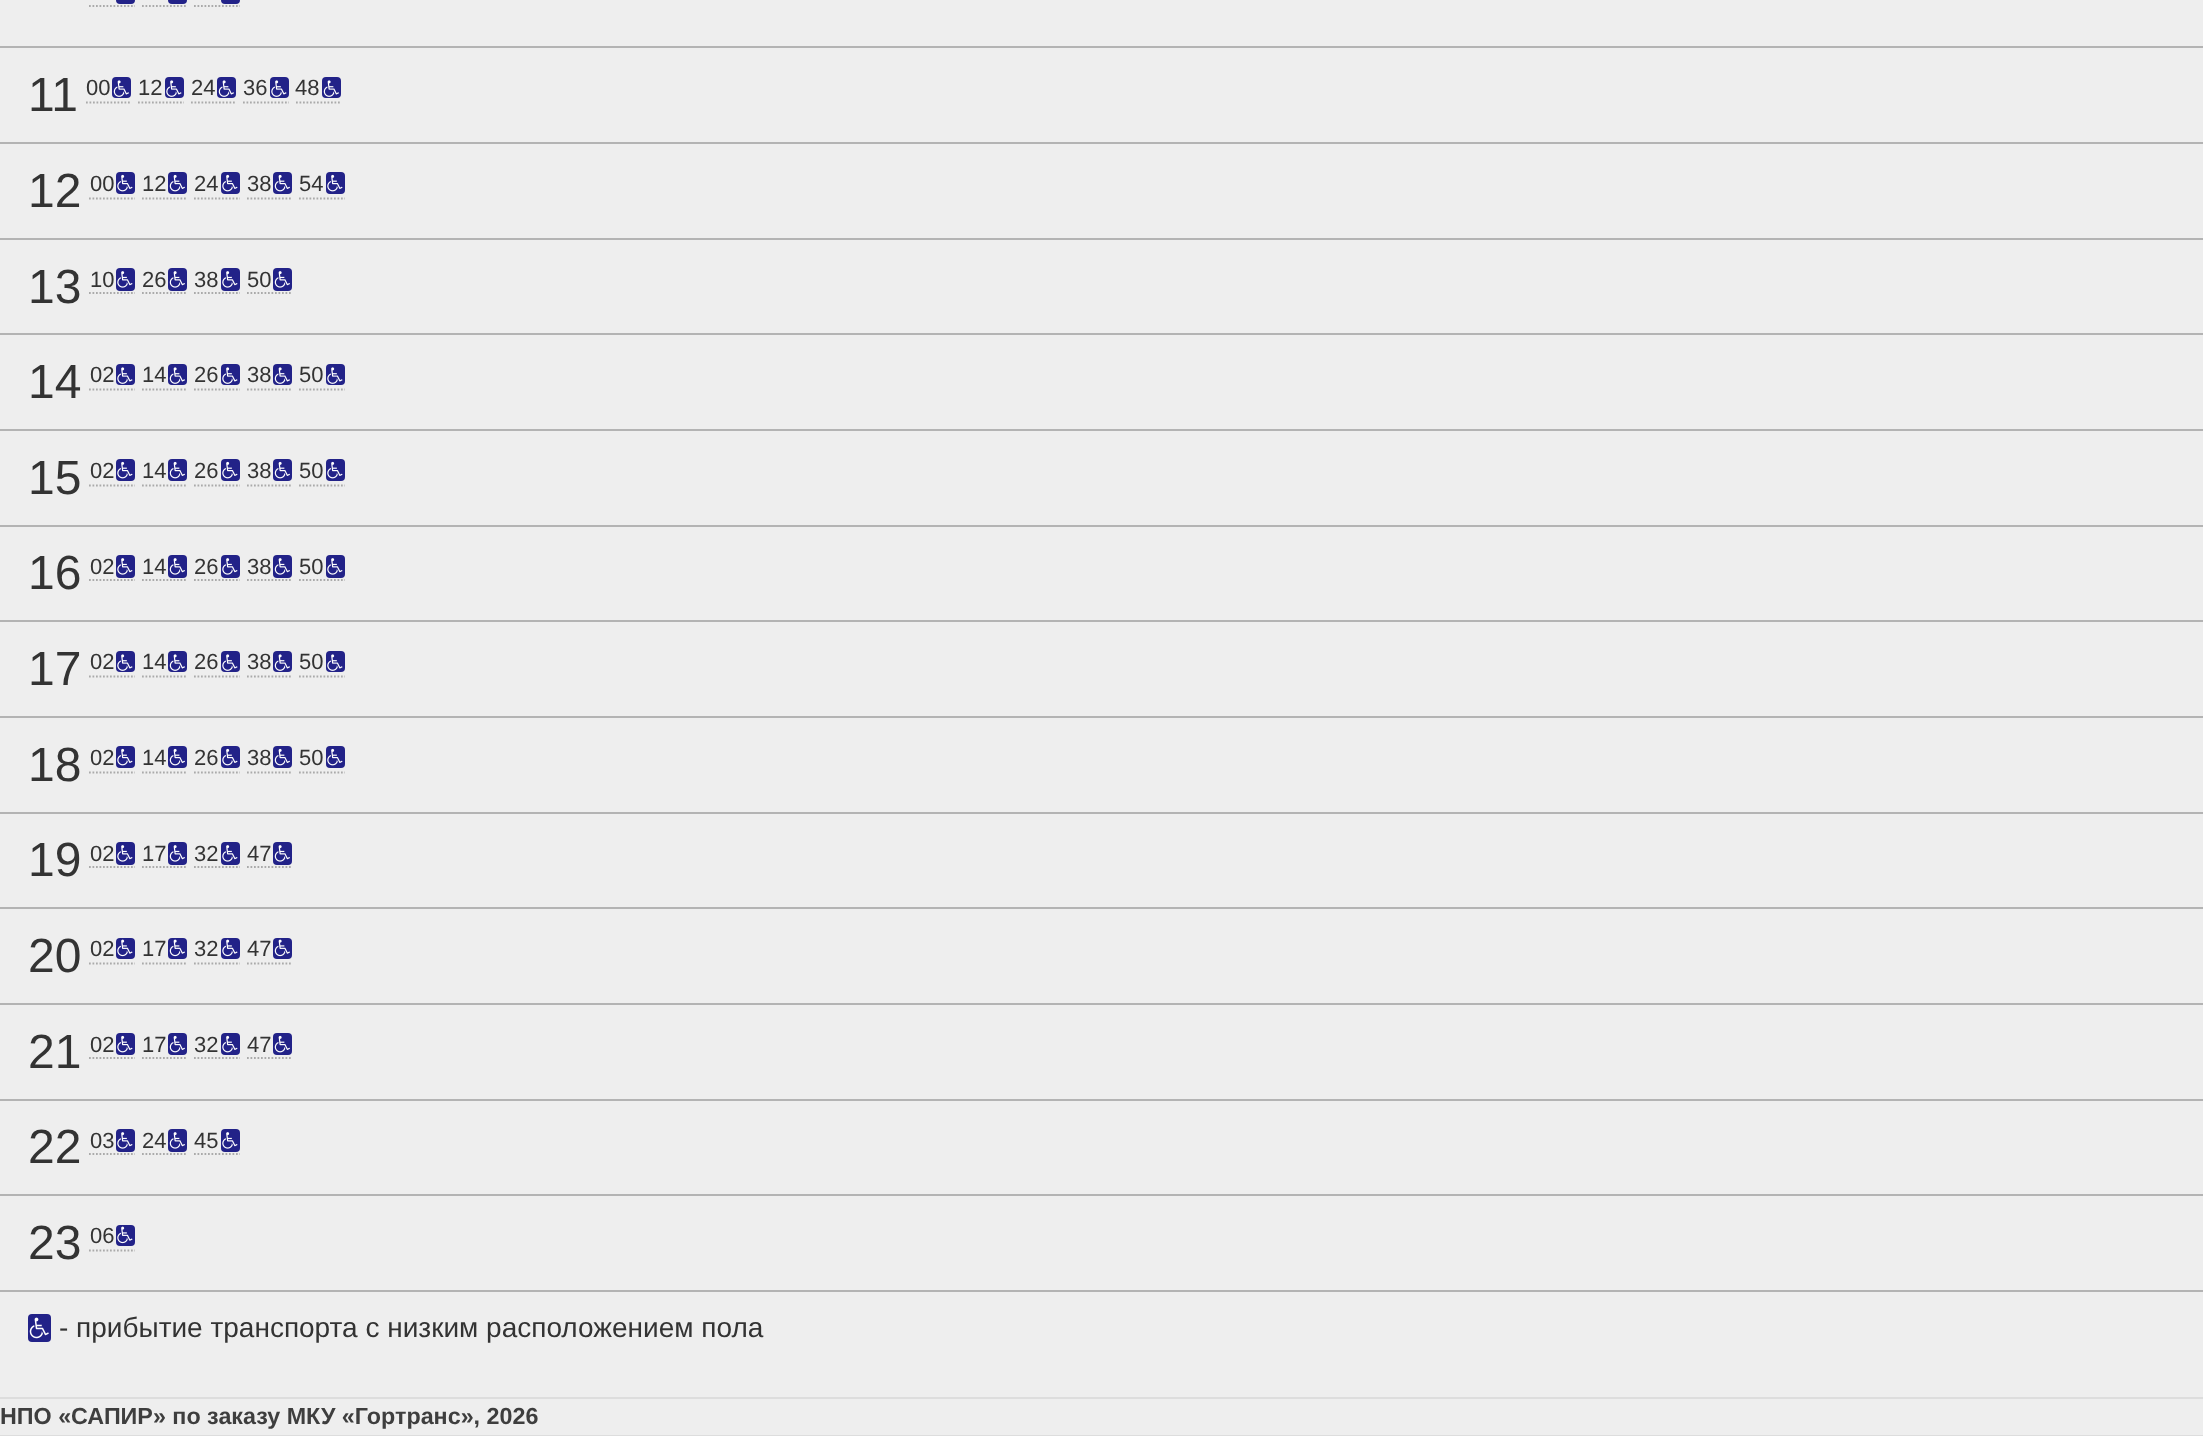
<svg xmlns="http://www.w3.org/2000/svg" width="2203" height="1436">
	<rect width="100%" height="100%" fill="#EEEEEE" />
	<path d="M89 6H135" fill="none" stroke="#AAAAAA" stroke-width="1.8" stroke-dasharray="1.75 1.75" />
	<rect x="116" y="-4" width="19" height="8" rx="4" fill="#222288" />
	<path d="M142 6H187" fill="none" stroke="#AAAAAA" stroke-width="1.8" stroke-dasharray="1.75 1.75" />
	<rect x="168" y="-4" width="19" height="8" rx="4" fill="#222288" />
	<path d="M194 6H240" fill="none" stroke="#AAAAAA" stroke-width="1.8" stroke-dasharray="1.75 1.75" />
	<rect x="221" y="-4" width="19" height="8" rx="4" fill="#222288" />
	<rect x="0" y="46" width="2203" height="2" fill="#B3B3B3" />
	<text x="28" y="111" font-family="Liberation Sans" font-size="48" fill="#333333">11</text>
	<path d="M86 102.5H131" fill="none" stroke="#AAAAAA" stroke-width="1.8" stroke-dasharray="1.75 1.75" />
	<text x="86" y="95" font-family="Liberation Sans" font-size="22" fill="#333333">00</text>
	<rect x="112" y="77" width="19" height="21" rx="4" fill="#222288" />
	<image x="113" y="80" width="16" height="17" href="assets/img1.png" />
	<path d="M138 102.5H184" fill="none" stroke="#AAAAAA" stroke-width="1.8" stroke-dasharray="1.75 1.75" />
	<text x="138" y="95" font-family="Liberation Sans" font-size="22" fill="#333333">12</text>
	<rect x="165" y="77" width="19" height="21" rx="4" fill="#222288" />
	<image x="166" y="80" width="16" height="17" href="assets/img2.png" />
	<path d="M191 102.5H236" fill="none" stroke="#AAAAAA" stroke-width="1.8" stroke-dasharray="1.75 1.75" />
	<text x="191" y="95" font-family="Liberation Sans" font-size="22" fill="#333333">24</text>
	<rect x="217" y="77" width="19" height="21" rx="4" fill="#222288" />
	<image x="218" y="80" width="16" height="17" href="assets/img1.png" />
	<path d="M243 102.5H289" fill="none" stroke="#AAAAAA" stroke-width="1.8" stroke-dasharray="1.75 1.75" />
	<text x="243" y="95" font-family="Liberation Sans" font-size="22" fill="#333333">36</text>
	<rect x="270" y="77" width="19" height="21" rx="4" fill="#222288" />
	<image x="271" y="80" width="16" height="17" href="assets/img2.png" />
	<path d="M296 102.5H341" fill="none" stroke="#AAAAAA" stroke-width="1.8" stroke-dasharray="1.75 1.75" />
	<text x="295" y="95" font-family="Liberation Sans" font-size="22" fill="#333333">48</text>
	<rect x="322" y="77" width="19" height="21" rx="4" fill="#222288" />
	<image x="323" y="80" width="16" height="17" href="assets/img1.png" />
	<rect x="0" y="142" width="2203" height="2" fill="#B3B3B3" />
	<text x="28" y="207" font-family="Liberation Sans" font-size="48" fill="#333333">12</text>
	<path d="M89 198.5H135" fill="none" stroke="#AAAAAA" stroke-width="1.8" stroke-dasharray="1.75 1.75" />
	<text x="90" y="191" font-family="Liberation Sans" font-size="22" fill="#333333">00</text>
	<rect x="116" y="172" width="19" height="22" rx="4" fill="#222288" />
	<image x="117" y="174" width="16" height="18" href="assets/img3.png" />
	<path d="M142 198.5H187" fill="none" stroke="#AAAAAA" stroke-width="1.8" stroke-dasharray="1.75 1.75" />
	<text x="142" y="191" font-family="Liberation Sans" font-size="22" fill="#333333">12</text>
	<rect x="168" y="172" width="19" height="22" rx="4" fill="#222288" />
	<image x="169" y="174" width="16" height="18" href="assets/img4.png" />
	<path d="M194 198.5H240" fill="none" stroke="#AAAAAA" stroke-width="1.8" stroke-dasharray="1.75 1.75" />
	<text x="194" y="191" font-family="Liberation Sans" font-size="22" fill="#333333">24</text>
	<rect x="221" y="172" width="19" height="22" rx="4" fill="#222288" />
	<image x="222" y="174" width="16" height="18" href="assets/img3.png" />
	<path d="M247 198.5H292" fill="none" stroke="#AAAAAA" stroke-width="1.8" stroke-dasharray="1.75 1.75" />
	<text x="247" y="191" font-family="Liberation Sans" font-size="22" fill="#333333">38</text>
	<rect x="273" y="172" width="19" height="22" rx="4" fill="#222288" />
	<image x="274" y="174" width="16" height="18" href="assets/img4.png" />
	<path d="M299 198.5H345" fill="none" stroke="#AAAAAA" stroke-width="1.8" stroke-dasharray="1.75 1.75" />
	<text x="299" y="191" font-family="Liberation Sans" font-size="22" fill="#333333">54</text>
	<rect x="326" y="172" width="19" height="22" rx="4" fill="#222288" />
	<image x="327" y="174" width="16" height="18" href="assets/img3.png" />
	<rect x="0" y="238" width="2203" height="2" fill="#B3B3B3" />
	<text x="28" y="303" font-family="Liberation Sans" font-size="48" fill="#333333">13</text>
	<path d="M89 293H135" fill="none" stroke="#AAAAAA" stroke-width="1.8" stroke-dasharray="1.75 1.75" />
	<text x="90" y="287" font-family="Liberation Sans" font-size="22" fill="#333333">10</text>
	<rect x="116" y="268" width="19" height="23" rx="4" fill="#222288" />
	<image x="117" y="271" width="16" height="17" href="assets/img5.png" />
	<path d="M142 293H187" fill="none" stroke="#AAAAAA" stroke-width="1.8" stroke-dasharray="1.75 1.75" />
	<text x="142" y="287" font-family="Liberation Sans" font-size="22" fill="#333333">26</text>
	<rect x="168" y="268" width="19" height="23" rx="4" fill="#222288" />
	<image x="169" y="271" width="16" height="17" href="assets/img6.png" />
	<path d="M194 293H240" fill="none" stroke="#AAAAAA" stroke-width="1.8" stroke-dasharray="1.75 1.75" />
	<text x="194" y="287" font-family="Liberation Sans" font-size="22" fill="#333333">38</text>
	<rect x="221" y="268" width="19" height="23" rx="4" fill="#222288" />
	<image x="222" y="271" width="16" height="17" href="assets/img5.png" />
	<path d="M247 293H292" fill="none" stroke="#AAAAAA" stroke-width="1.8" stroke-dasharray="1.75 1.75" />
	<text x="247" y="287" font-family="Liberation Sans" font-size="22" fill="#333333">50</text>
	<rect x="273" y="268" width="19" height="23" rx="4" fill="#222288" />
	<image x="274" y="271" width="16" height="17" href="assets/img6.png" />
	<rect x="0" y="333" width="2203" height="2" fill="#B3B3B3" />
	<text x="28" y="398" font-family="Liberation Sans" font-size="48" fill="#333333">14</text>
	<path d="M89 389.5H135" fill="none" stroke="#AAAAAA" stroke-width="1.8" stroke-dasharray="1.75 1.75" />
	<text x="90" y="382" font-family="Liberation Sans" font-size="22" fill="#333333">02</text>
	<rect x="116" y="364" width="19" height="21" rx="4" fill="#222288" />
	<image x="117" y="367" width="16" height="17" href="assets/img2.png" />
	<path d="M142 389.5H187" fill="none" stroke="#AAAAAA" stroke-width="1.8" stroke-dasharray="1.75 1.75" />
	<text x="142" y="382" font-family="Liberation Sans" font-size="22" fill="#333333">14</text>
	<rect x="168" y="364" width="19" height="21" rx="4" fill="#222288" />
	<image x="169" y="367" width="16" height="17" href="assets/img1.png" />
	<path d="M194 389.5H240" fill="none" stroke="#AAAAAA" stroke-width="1.8" stroke-dasharray="1.75 1.75" />
	<text x="194" y="382" font-family="Liberation Sans" font-size="22" fill="#333333">26</text>
	<rect x="221" y="364" width="19" height="21" rx="4" fill="#222288" />
	<image x="222" y="367" width="16" height="17" href="assets/img2.png" />
	<path d="M247 389.5H292" fill="none" stroke="#AAAAAA" stroke-width="1.8" stroke-dasharray="1.75 1.75" />
	<text x="247" y="382" font-family="Liberation Sans" font-size="22" fill="#333333">38</text>
	<rect x="273" y="364" width="19" height="21" rx="4" fill="#222288" />
	<image x="274" y="367" width="16" height="17" href="assets/img1.png" />
	<path d="M299 389.5H345" fill="none" stroke="#AAAAAA" stroke-width="1.8" stroke-dasharray="1.75 1.75" />
	<text x="299" y="382" font-family="Liberation Sans" font-size="22" fill="#333333">50</text>
	<rect x="326" y="364" width="19" height="21" rx="4" fill="#222288" />
	<image x="327" y="367" width="16" height="17" href="assets/img2.png" />
	<rect x="0" y="429" width="2203" height="2" fill="#B3B3B3" />
	<text x="28" y="494" font-family="Liberation Sans" font-size="48" fill="#333333">15</text>
	<path d="M89 485.5H135" fill="none" stroke="#AAAAAA" stroke-width="1.8" stroke-dasharray="1.75 1.75" />
	<text x="90" y="478" font-family="Liberation Sans" font-size="22" fill="#333333">02</text>
	<rect x="116" y="459" width="19" height="22" rx="4" fill="#222288" />
	<image x="117" y="461" width="16" height="18" href="assets/img3.png" />
	<path d="M142 485.5H187" fill="none" stroke="#AAAAAA" stroke-width="1.8" stroke-dasharray="1.75 1.75" />
	<text x="142" y="478" font-family="Liberation Sans" font-size="22" fill="#333333">14</text>
	<rect x="168" y="459" width="19" height="22" rx="4" fill="#222288" />
	<image x="169" y="461" width="16" height="18" href="assets/img4.png" />
	<path d="M194 485.5H240" fill="none" stroke="#AAAAAA" stroke-width="1.8" stroke-dasharray="1.75 1.75" />
	<text x="194" y="478" font-family="Liberation Sans" font-size="22" fill="#333333">26</text>
	<rect x="221" y="459" width="19" height="22" rx="4" fill="#222288" />
	<image x="222" y="461" width="16" height="18" href="assets/img3.png" />
	<path d="M247 485.5H292" fill="none" stroke="#AAAAAA" stroke-width="1.8" stroke-dasharray="1.75 1.75" />
	<text x="247" y="478" font-family="Liberation Sans" font-size="22" fill="#333333">38</text>
	<rect x="273" y="459" width="19" height="22" rx="4" fill="#222288" />
	<image x="274" y="461" width="16" height="18" href="assets/img4.png" />
	<path d="M299 485.5H345" fill="none" stroke="#AAAAAA" stroke-width="1.8" stroke-dasharray="1.75 1.75" />
	<text x="299" y="478" font-family="Liberation Sans" font-size="22" fill="#333333">50</text>
	<rect x="326" y="459" width="19" height="22" rx="4" fill="#222288" />
	<image x="327" y="461" width="16" height="18" href="assets/img3.png" />
	<rect x="0" y="525" width="2203" height="2" fill="#B3B3B3" />
	<text x="28" y="589" font-family="Liberation Sans" font-size="48" fill="#333333">16</text>
	<path d="M89 580H135" fill="none" stroke="#AAAAAA" stroke-width="1.8" stroke-dasharray="1.75 1.75" />
	<text x="90" y="574" font-family="Liberation Sans" font-size="22" fill="#333333">02</text>
	<rect x="116" y="555" width="19" height="23" rx="4" fill="#222288" />
	<image x="117" y="558" width="16" height="17" href="assets/img5.png" />
	<path d="M142 580H187" fill="none" stroke="#AAAAAA" stroke-width="1.8" stroke-dasharray="1.75 1.75" />
	<text x="142" y="574" font-family="Liberation Sans" font-size="22" fill="#333333">14</text>
	<rect x="168" y="555" width="19" height="23" rx="4" fill="#222288" />
	<image x="169" y="558" width="16" height="17" href="assets/img6.png" />
	<path d="M194 580H240" fill="none" stroke="#AAAAAA" stroke-width="1.8" stroke-dasharray="1.75 1.75" />
	<text x="194" y="574" font-family="Liberation Sans" font-size="22" fill="#333333">26</text>
	<rect x="221" y="555" width="19" height="23" rx="4" fill="#222288" />
	<image x="222" y="558" width="16" height="17" href="assets/img5.png" />
	<path d="M247 580H292" fill="none" stroke="#AAAAAA" stroke-width="1.8" stroke-dasharray="1.75 1.75" />
	<text x="247" y="574" font-family="Liberation Sans" font-size="22" fill="#333333">38</text>
	<rect x="273" y="555" width="19" height="23" rx="4" fill="#222288" />
	<image x="274" y="558" width="16" height="17" href="assets/img6.png" />
	<path d="M299 580H345" fill="none" stroke="#AAAAAA" stroke-width="1.8" stroke-dasharray="1.75 1.75" />
	<text x="299" y="574" font-family="Liberation Sans" font-size="22" fill="#333333">50</text>
	<rect x="326" y="555" width="19" height="23" rx="4" fill="#222288" />
	<image x="327" y="558" width="16" height="17" href="assets/img5.png" />
	<rect x="0" y="620" width="2203" height="2" fill="#B3B3B3" />
	<text x="28" y="685" font-family="Liberation Sans" font-size="48" fill="#333333">17</text>
	<path d="M89 676.5H135" fill="none" stroke="#AAAAAA" stroke-width="1.8" stroke-dasharray="1.75 1.75" />
	<text x="90" y="669" font-family="Liberation Sans" font-size="22" fill="#333333">02</text>
	<rect x="116" y="651" width="19" height="21" rx="4" fill="#222288" />
	<image x="117" y="654" width="16" height="17" href="assets/img2.png" />
	<path d="M142 676.5H187" fill="none" stroke="#AAAAAA" stroke-width="1.8" stroke-dasharray="1.75 1.75" />
	<text x="142" y="669" font-family="Liberation Sans" font-size="22" fill="#333333">14</text>
	<rect x="168" y="651" width="19" height="21" rx="4" fill="#222288" />
	<image x="169" y="654" width="16" height="17" href="assets/img1.png" />
	<path d="M194 676.5H240" fill="none" stroke="#AAAAAA" stroke-width="1.8" stroke-dasharray="1.75 1.75" />
	<text x="194" y="669" font-family="Liberation Sans" font-size="22" fill="#333333">26</text>
	<rect x="221" y="651" width="19" height="21" rx="4" fill="#222288" />
	<image x="222" y="654" width="16" height="17" href="assets/img2.png" />
	<path d="M247 676.5H292" fill="none" stroke="#AAAAAA" stroke-width="1.8" stroke-dasharray="1.75 1.75" />
	<text x="247" y="669" font-family="Liberation Sans" font-size="22" fill="#333333">38</text>
	<rect x="273" y="651" width="19" height="21" rx="4" fill="#222288" />
	<image x="274" y="654" width="16" height="17" href="assets/img1.png" />
	<path d="M299 676.5H345" fill="none" stroke="#AAAAAA" stroke-width="1.8" stroke-dasharray="1.75 1.75" />
	<text x="299" y="669" font-family="Liberation Sans" font-size="22" fill="#333333">50</text>
	<rect x="326" y="651" width="19" height="21" rx="4" fill="#222288" />
	<image x="327" y="654" width="16" height="17" href="assets/img2.png" />
	<rect x="0" y="716" width="2203" height="2" fill="#B3B3B3" />
	<text x="28" y="781" font-family="Liberation Sans" font-size="48" fill="#333333">18</text>
	<path d="M89 772.5H135" fill="none" stroke="#AAAAAA" stroke-width="1.8" stroke-dasharray="1.75 1.75" />
	<text x="90" y="765" font-family="Liberation Sans" font-size="22" fill="#333333">02</text>
	<rect x="116" y="746" width="19" height="22" rx="4" fill="#222288" />
	<image x="117" y="748" width="16" height="18" href="assets/img3.png" />
	<path d="M142 772.5H187" fill="none" stroke="#AAAAAA" stroke-width="1.8" stroke-dasharray="1.75 1.75" />
	<text x="142" y="765" font-family="Liberation Sans" font-size="22" fill="#333333">14</text>
	<rect x="168" y="746" width="19" height="22" rx="4" fill="#222288" />
	<image x="169" y="748" width="16" height="18" href="assets/img4.png" />
	<path d="M194 772.5H240" fill="none" stroke="#AAAAAA" stroke-width="1.8" stroke-dasharray="1.75 1.75" />
	<text x="194" y="765" font-family="Liberation Sans" font-size="22" fill="#333333">26</text>
	<rect x="221" y="746" width="19" height="22" rx="4" fill="#222288" />
	<image x="222" y="748" width="16" height="18" href="assets/img3.png" />
	<path d="M247 772.5H292" fill="none" stroke="#AAAAAA" stroke-width="1.8" stroke-dasharray="1.75 1.75" />
	<text x="247" y="765" font-family="Liberation Sans" font-size="22" fill="#333333">38</text>
	<rect x="273" y="746" width="19" height="22" rx="4" fill="#222288" />
	<image x="274" y="748" width="16" height="18" href="assets/img4.png" />
	<path d="M299 772.5H345" fill="none" stroke="#AAAAAA" stroke-width="1.8" stroke-dasharray="1.75 1.75" />
	<text x="299" y="765" font-family="Liberation Sans" font-size="22" fill="#333333">50</text>
	<rect x="326" y="746" width="19" height="22" rx="4" fill="#222288" />
	<image x="327" y="748" width="16" height="18" href="assets/img3.png" />
	<rect x="0" y="812" width="2203" height="2" fill="#B3B3B3" />
	<text x="28" y="876" font-family="Liberation Sans" font-size="48" fill="#333333">19</text>
	<path d="M89 867H135" fill="none" stroke="#AAAAAA" stroke-width="1.8" stroke-dasharray="1.75 1.75" />
	<text x="90" y="861" font-family="Liberation Sans" font-size="22" fill="#333333">02</text>
	<rect x="116" y="842" width="19" height="23" rx="4" fill="#222288" />
	<image x="117" y="845" width="16" height="17" href="assets/img5.png" />
	<path d="M142 867H187" fill="none" stroke="#AAAAAA" stroke-width="1.8" stroke-dasharray="1.75 1.75" />
	<text x="142" y="861" font-family="Liberation Sans" font-size="22" fill="#333333">17</text>
	<rect x="168" y="842" width="19" height="23" rx="4" fill="#222288" />
	<image x="169" y="845" width="16" height="17" href="assets/img6.png" />
	<path d="M194 867H240" fill="none" stroke="#AAAAAA" stroke-width="1.8" stroke-dasharray="1.75 1.75" />
	<text x="194" y="861" font-family="Liberation Sans" font-size="22" fill="#333333">32</text>
	<rect x="221" y="842" width="19" height="23" rx="4" fill="#222288" />
	<image x="222" y="845" width="16" height="17" href="assets/img5.png" />
	<path d="M247 867H292" fill="none" stroke="#AAAAAA" stroke-width="1.8" stroke-dasharray="1.75 1.75" />
	<text x="247" y="861" font-family="Liberation Sans" font-size="22" fill="#333333">47</text>
	<rect x="273" y="842" width="19" height="23" rx="4" fill="#222288" />
	<image x="274" y="845" width="16" height="17" href="assets/img6.png" />
	<rect x="0" y="907" width="2203" height="2" fill="#B3B3B3" />
	<text x="28" y="972" font-family="Liberation Sans" font-size="48" fill="#333333">20</text>
	<path d="M89 963.5H135" fill="none" stroke="#AAAAAA" stroke-width="1.8" stroke-dasharray="1.75 1.75" />
	<text x="90" y="956" font-family="Liberation Sans" font-size="22" fill="#333333">02</text>
	<rect x="116" y="938" width="19" height="21" rx="4" fill="#222288" />
	<image x="117" y="939" width="16" height="18" href="assets/img7.png" />
	<path d="M142 963.5H187" fill="none" stroke="#AAAAAA" stroke-width="1.8" stroke-dasharray="1.75 1.75" />
	<text x="142" y="956" font-family="Liberation Sans" font-size="22" fill="#333333">17</text>
	<rect x="168" y="938" width="19" height="21" rx="4" fill="#222288" />
	<image x="169" y="939" width="16" height="18" href="assets/img8.png" />
	<path d="M194 963.5H240" fill="none" stroke="#AAAAAA" stroke-width="1.8" stroke-dasharray="1.75 1.75" />
	<text x="194" y="956" font-family="Liberation Sans" font-size="22" fill="#333333">32</text>
	<rect x="221" y="938" width="19" height="21" rx="4" fill="#222288" />
	<image x="222" y="939" width="16" height="18" href="assets/img7.png" />
	<path d="M247 963.5H292" fill="none" stroke="#AAAAAA" stroke-width="1.8" stroke-dasharray="1.75 1.75" />
	<text x="247" y="956" font-family="Liberation Sans" font-size="22" fill="#333333">47</text>
	<rect x="273" y="938" width="19" height="21" rx="4" fill="#222288" />
	<image x="274" y="939" width="16" height="18" href="assets/img8.png" />
	<rect x="0" y="1003" width="2203" height="2" fill="#B3B3B3" />
	<text x="28" y="1068" font-family="Liberation Sans" font-size="48" fill="#333333">21</text>
	<path d="M89 1058H135" fill="none" stroke="#AAAAAA" stroke-width="1.8" stroke-dasharray="1.75 1.75" />
	<text x="90" y="1052" font-family="Liberation Sans" font-size="22" fill="#333333">02</text>
	<rect x="116" y="1033" width="19" height="22" rx="4" fill="#222288" />
	<image x="117" y="1035" width="16" height="18" href="assets/img3.png" />
	<path d="M142 1058H187" fill="none" stroke="#AAAAAA" stroke-width="1.8" stroke-dasharray="1.75 1.75" />
	<text x="142" y="1052" font-family="Liberation Sans" font-size="22" fill="#333333">17</text>
	<rect x="168" y="1033" width="19" height="22" rx="4" fill="#222288" />
	<image x="169" y="1035" width="16" height="18" href="assets/img4.png" />
	<path d="M194 1058H240" fill="none" stroke="#AAAAAA" stroke-width="1.8" stroke-dasharray="1.75 1.75" />
	<text x="194" y="1052" font-family="Liberation Sans" font-size="22" fill="#333333">32</text>
	<rect x="221" y="1033" width="19" height="22" rx="4" fill="#222288" />
	<image x="222" y="1035" width="16" height="18" href="assets/img3.png" />
	<path d="M247 1058H292" fill="none" stroke="#AAAAAA" stroke-width="1.8" stroke-dasharray="1.75 1.75" />
	<text x="247" y="1052" font-family="Liberation Sans" font-size="22" fill="#333333">47</text>
	<rect x="273" y="1033" width="19" height="22" rx="4" fill="#222288" />
	<image x="274" y="1035" width="16" height="18" href="assets/img4.png" />
	<rect x="0" y="1099" width="2203" height="2" fill="#B3B3B3" />
	<text x="28" y="1163" font-family="Liberation Sans" font-size="48" fill="#333333">22</text>
	<path d="M89 1154H135" fill="none" stroke="#AAAAAA" stroke-width="1.8" stroke-dasharray="1.75 1.75" />
	<text x="90" y="1148" font-family="Liberation Sans" font-size="22" fill="#333333">03</text>
	<rect x="116" y="1129" width="19" height="23" rx="4" fill="#222288" />
	<image x="117" y="1132" width="16" height="17" href="assets/img5.png" />
	<path d="M142 1154H187" fill="none" stroke="#AAAAAA" stroke-width="1.8" stroke-dasharray="1.75 1.75" />
	<text x="142" y="1148" font-family="Liberation Sans" font-size="22" fill="#333333">24</text>
	<rect x="168" y="1129" width="19" height="23" rx="4" fill="#222288" />
	<image x="169" y="1132" width="16" height="17" href="assets/img6.png" />
	<path d="M194 1154H240" fill="none" stroke="#AAAAAA" stroke-width="1.8" stroke-dasharray="1.75 1.75" />
	<text x="194" y="1148" font-family="Liberation Sans" font-size="22" fill="#333333">45</text>
	<rect x="221" y="1129" width="19" height="23" rx="4" fill="#222288" />
	<image x="222" y="1132" width="16" height="17" href="assets/img5.png" />
	<rect x="0" y="1194" width="2203" height="2" fill="#B3B3B3" />
	<rect x="0" y="1290" width="2203" height="2" fill="#B3B3B3" />
	<text x="28" y="1259" font-family="Liberation Sans" font-size="48" fill="#333333">23</text>
	<path d="M89 1250.5H135" fill="none" stroke="#AAAAAA" stroke-width="1.8" stroke-dasharray="1.75 1.75" />
	<text x="90" y="1243" font-family="Liberation Sans" font-size="22" fill="#333333">06</text>
	<rect x="116" y="1225" width="19" height="21" rx="4" fill="#222288" />
	<image x="117" y="1226" width="16" height="18" href="assets/img7.png" />
	<rect x="28" y="1314" width="23" height="28" rx="4" fill="#222288" />
	<image x="29" y="1317" width="20" height="22" href="assets/img9.png" />
	<text x="59" y="1337" font-family="Liberation Sans" font-size="28" fill="#333333">- прибытие транспорта с низким расположением пола</text>
	<rect x="0" y="1397" width="2203" height="2" fill="#DDDDDD" />
	<rect x="0" y="1435" width="2203" height="1" fill="#DDDDDD" />
	<text x="0" y="1424" font-family="Liberation Sans" font-size="23.3" font-weight="700" fill="#3E3E3E">НПО «САПИР» по заказу МКУ «Гортранс», 2026</text>
</svg>
